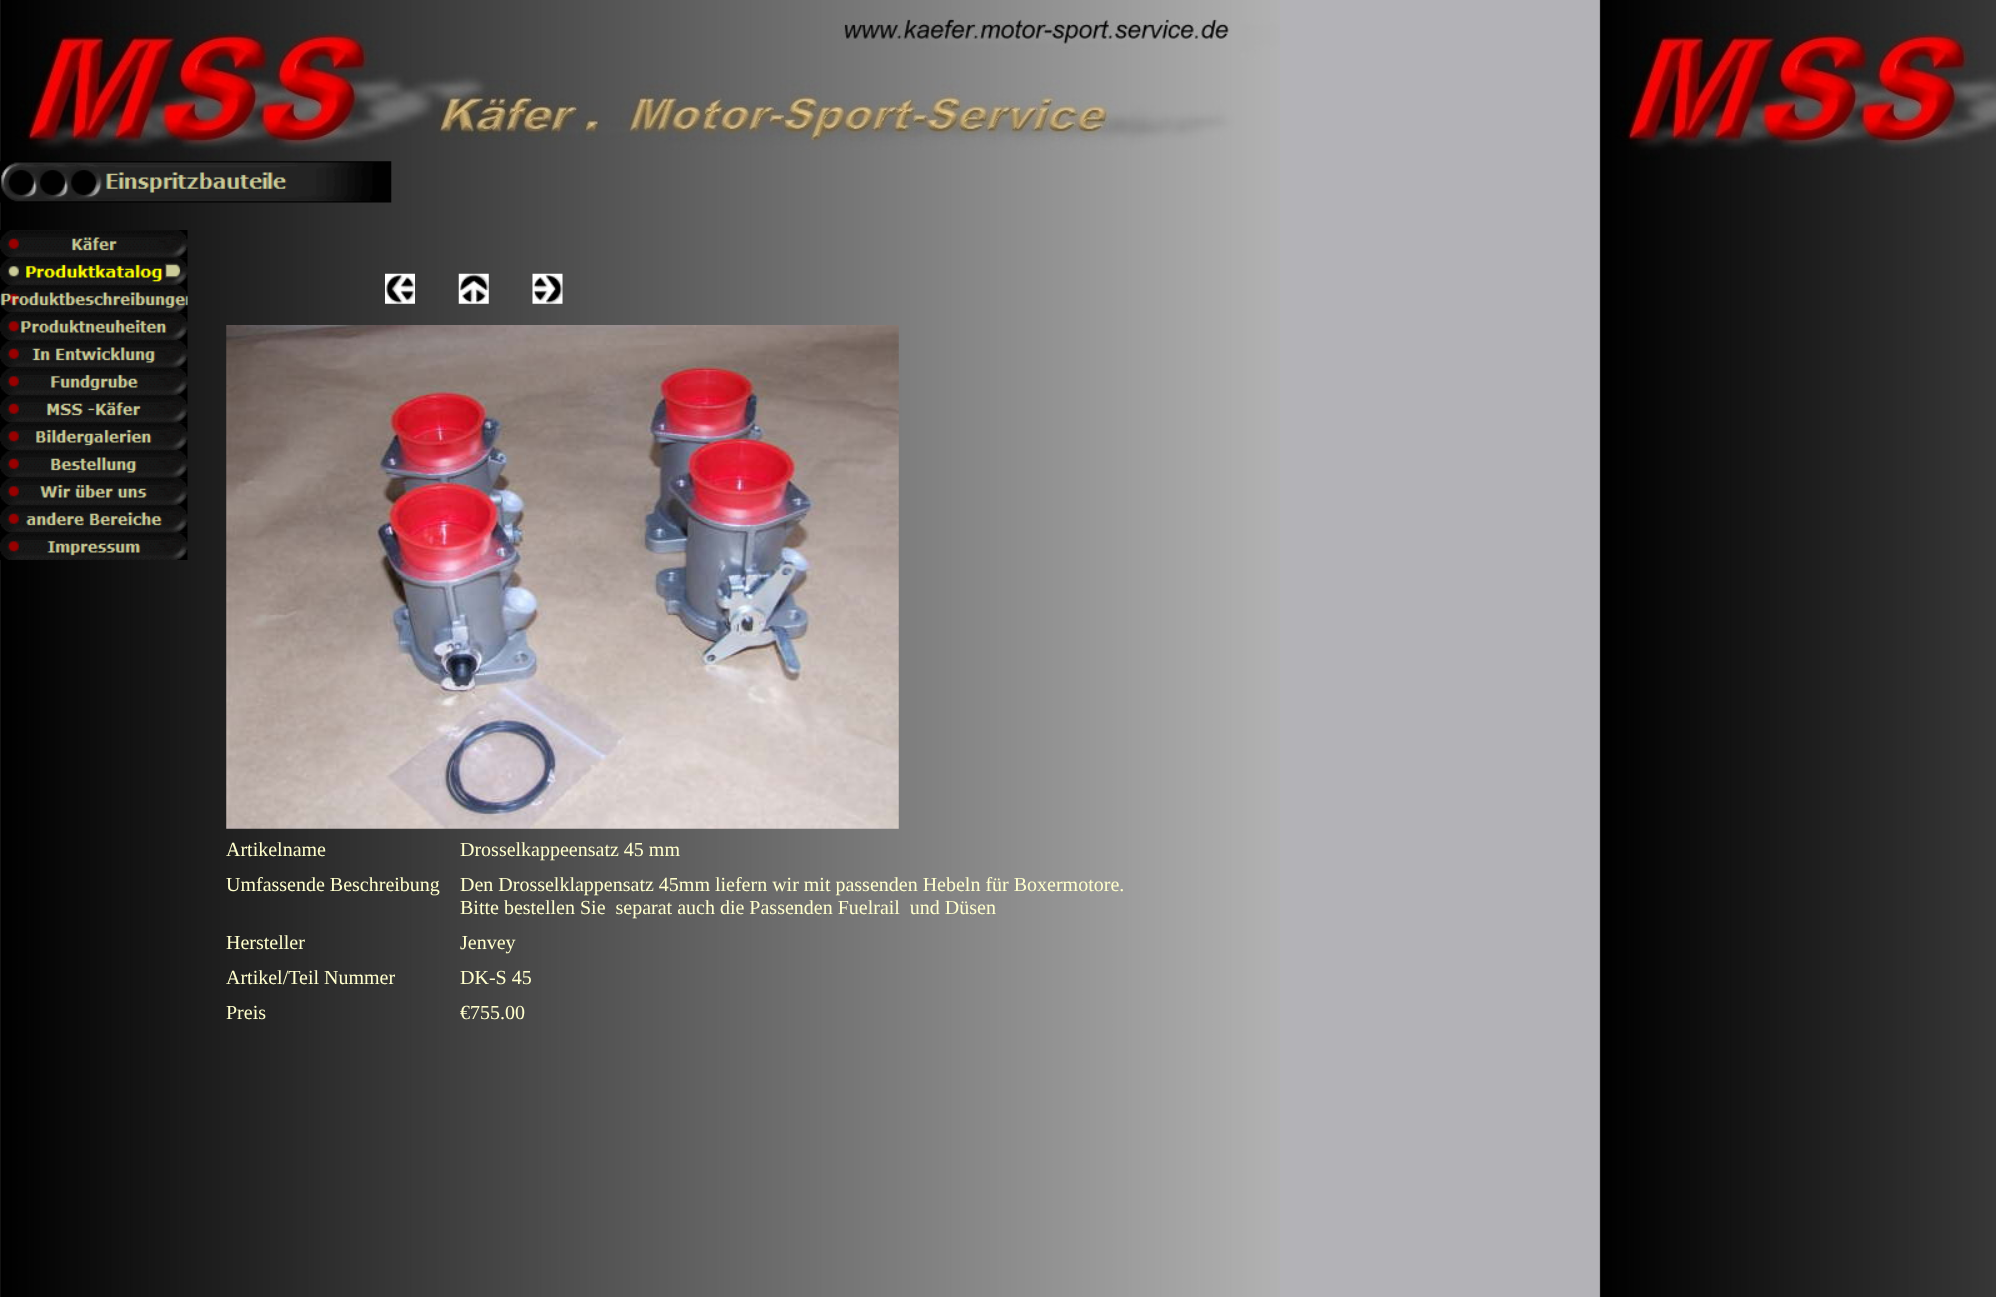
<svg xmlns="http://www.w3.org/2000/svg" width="1996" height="1297">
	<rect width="100%" height="100%" fill="#FFFFFF" />
	<image x="0" y="0" width="1996" height="1297" href="assets/img1.png" />
	<image x="0" y="161" width="392" height="42" href="assets/img2.png" />
	<image x="0" y="230" width="188" height="28" href="assets/img3.png" />
	<image x="0" y="257" width="188" height="28" href="assets/img4.png" />
	<image x="0" y="285" width="188" height="28" href="assets/img5.png" />
	<image x="0" y="312" width="188" height="28" href="assets/img6.png" />
	<image x="0" y="340" width="188" height="28" href="assets/img7.png" />
	<image x="0" y="367" width="188" height="28" href="assets/img8.png" />
	<image x="0" y="395" width="188" height="28" href="assets/img9.png" />
	<image x="0" y="422" width="188" height="28" href="assets/img10.png" />
	<image x="0" y="450" width="188" height="28" href="assets/img11.png" />
	<image x="0" y="477" width="188" height="28" href="assets/img12.png" />
	<image x="0" y="505" width="188" height="28" href="assets/img13.png" />
	<image x="0" y="532" width="188" height="28" href="assets/img14.png" />
	<image x="385" y="273" width="30" height="31" href="assets/img15.png" />
	<image x="458" y="273" width="31" height="31" href="assets/img16.png" />
	<image x="532" y="273" width="31" height="31" href="assets/img17.png" />
	<image x="226" y="325" width="673" height="504" href="assets/img18.png" />
	<g font-family="Liberation Serif" font-size="20" fill="#FFFFCC">
		<text x="226" y="856">Artikelname</text>
		<text x="460" y="856">Drosselkappeensatz 45 mm</text>
		<text x="226" y="891">Umfassende Beschreibung</text>
		<text x="460" y="891">Den Drosselklappensatz 45mm liefern wir mit passenden Hebeln für Boxermotore.</text>
		<text x="460" y="914" xml:space="preserve">Bitte bestellen Sie  separat auch die Passenden Fuelrail  und Düsen</text>
		<text x="226" y="949">Hersteller</text>
		<text x="460" y="949">Jenvey</text>
		<text x="226" y="984">Artikel/Teil Nummer</text>
		<text x="460" y="984">DK-S 45</text>
		<text x="226" y="1019">Preis</text>
		<text x="460" y="1019">€755.00</text>
	</g>
</svg>
